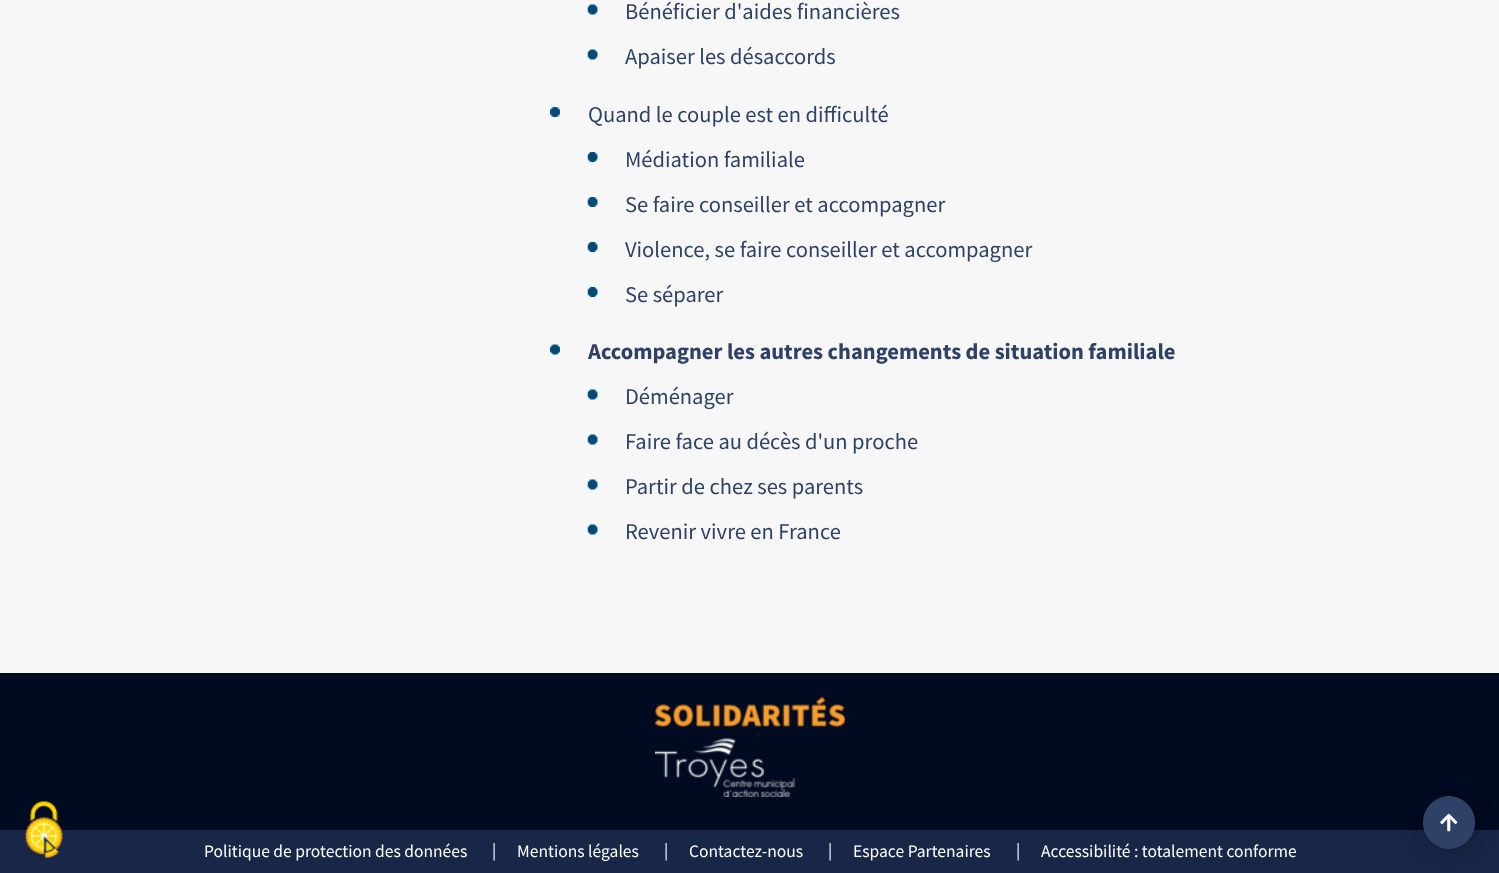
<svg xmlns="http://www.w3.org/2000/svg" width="1499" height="873">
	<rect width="100%" height="100%" fill="#F7F7F7" />
	<rect x="0" y="830" width="1499" height="43" fill="#182747" />
	<rect x="0" y="673" width="1499" height="157" fill="#000A20" />
	<image x="24" y="801" width="39" height="58" href="assets/img1.png" />
	<image x="587" y="4" width="11" height="11" href="assets/img2.png" />
	<text x="625" y="19" font-family="Source Sans Pro" font-size="22.5" fill="#2F4167">Bénéficier d'aides financières</text>
	<image x="587" y="49" width="11" height="11" href="assets/img2.png" />
	<text x="625" y="64" font-family="Source Sans Pro" font-size="22.5" fill="#2F4167">Apaiser les désaccords</text>
	<image x="550" y="107" width="10" height="10" href="assets/img3.png" />
	<text x="588" y="122" font-family="Source Sans Pro" font-size="22.5" fill="#2F4167">Quand le couple est en difficulté</text>
	<image x="587" y="152" width="11" height="10" href="assets/img4.png" />
	<text x="625" y="167" font-family="Source Sans Pro" font-size="22.5" fill="#2F4167">Médiation familiale</text>
	<image x="587" y="197" width="11" height="10" href="assets/img4.png" />
	<text x="625" y="212" font-family="Source Sans Pro" font-size="22.5" fill="#2F4167">Se faire conseiller et accompagner</text>
	<image x="587" y="242" width="11" height="10" href="assets/img4.png" />
	<text x="625" y="257" font-family="Source Sans Pro" font-size="22.5" fill="#2F4167">Violence, se faire conseiller et accompagner</text>
	<image x="587" y="287" width="11" height="10" href="assets/img4.png" />
	<text x="625" y="302" font-family="Source Sans Pro" font-size="22.5" fill="#2F4167">Se séparer</text>
	<image x="550" y="344" width="10" height="11" href="assets/img5.png" />
	<text x="588" y="359" font-family="Source Sans Pro" font-size="22.5" font-weight="700" fill="#2F4167">Accompagner les autres changements de situation familiale</text>
	<image x="587" y="389" width="11" height="11" href="assets/img2.png" />
	<text x="625" y="404" font-family="Source Sans Pro" font-size="22.5" fill="#2F4167">Déménager</text>
	<image x="587" y="434" width="11" height="11" href="assets/img2.png" />
	<text x="625" y="449" font-family="Source Sans Pro" font-size="22.5" fill="#2F4167">Faire face au décès d'un proche</text>
	<image x="587" y="479" width="11" height="11" href="assets/img2.png" />
	<text x="625" y="494" font-family="Source Sans Pro" font-size="22.5" fill="#2F4167">Partir de chez ses parents</text>
	<image x="587" y="524" width="11" height="11" href="assets/img2.png" />
	<text x="625" y="539" font-family="Source Sans Pro" font-size="22.5" fill="#2F4167">Revenir vivre en France</text>
	<image x="655" y="697" width="190" height="100" href="assets/img6.png" />
	<g font-family="Source Sans Pro" font-size="17.5" fill="#FFFFFF">
		<text x="204" y="857">Politique de protection des données</text>
		<text x="492" y="856">|</text>
		<text x="517" y="857">Mentions légales</text>
		<text x="664" y="856">|</text>
		<text x="689" y="857">Contactez-nous</text>
		<text x="828" y="856">|</text>
		<text x="853" y="857">Espace Partenaires</text>
		<text x="1016" y="856">|</text>
		<text x="1041" y="857">Accessibilité : totalement conforme</text>
	</g>
	<rect x="1424" y="798" width="52" height="52" rx="26" fill="#000000" fill-opacity="0.3" filter="blur(10px)" />
	<rect x="1423.5" y="796.5" width="51" height="52" rx="25.5" fill="#2F4167" stroke="#2F4167" />
	<image x="1440" y="813" width="18" height="19" href="assets/img7.png" />
</svg>
